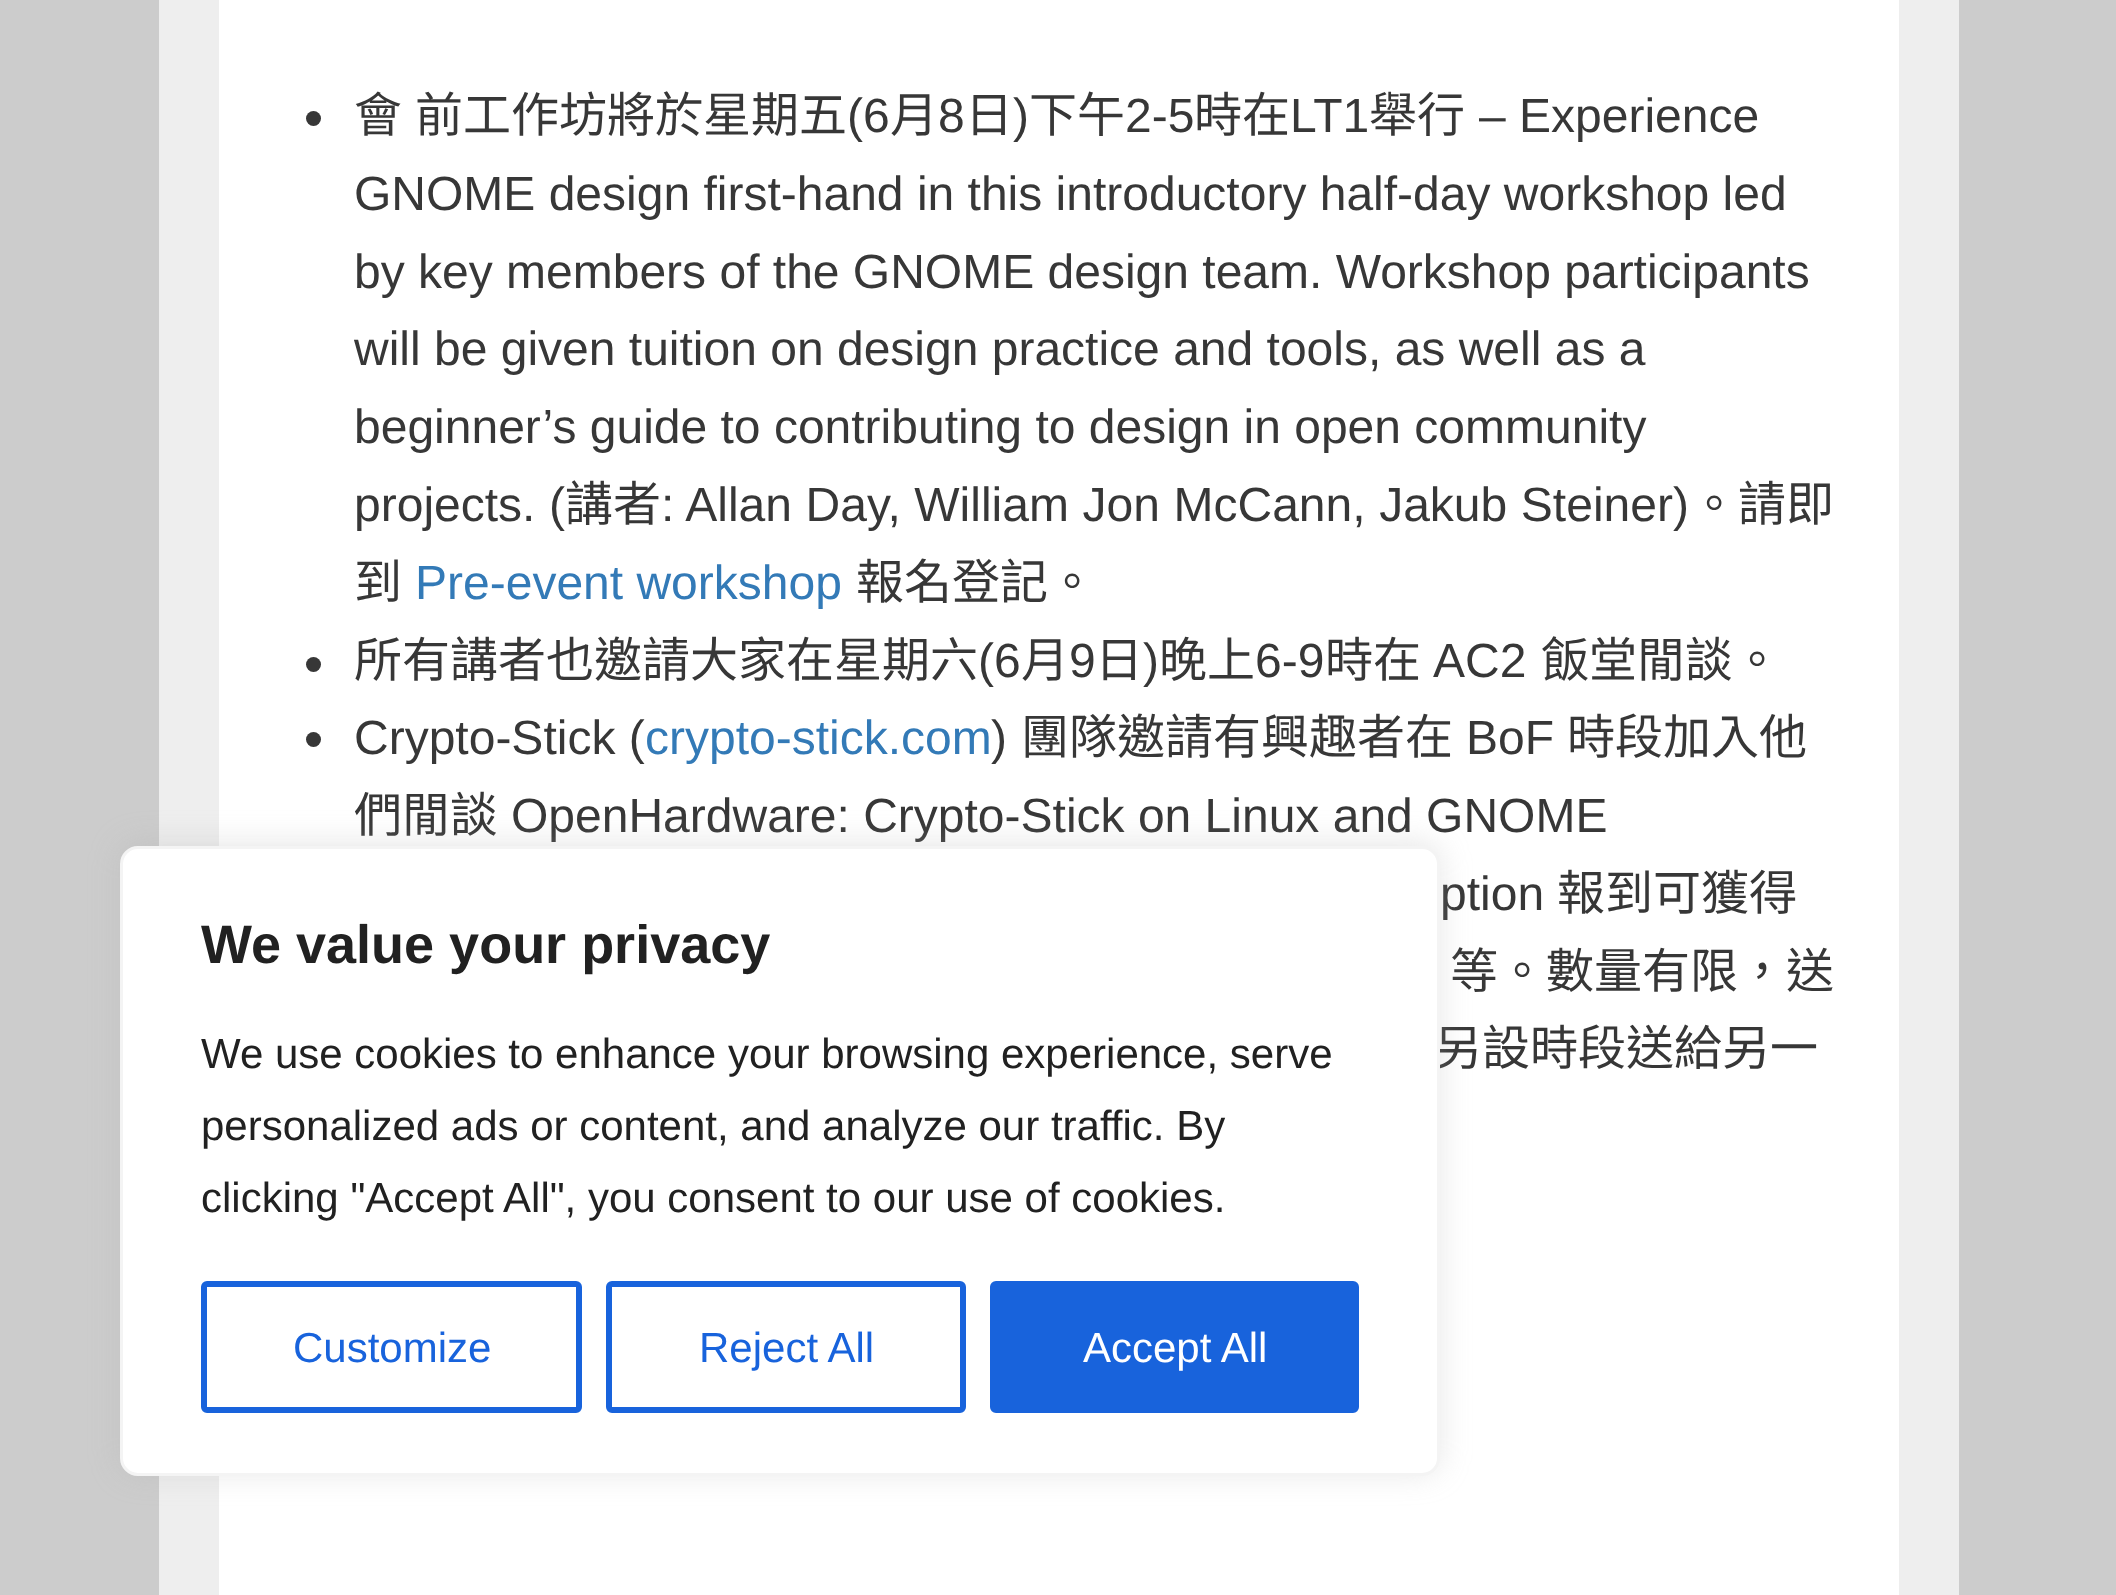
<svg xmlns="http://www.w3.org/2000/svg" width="2116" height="1595">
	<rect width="100%" height="100%" fill="#CCCCCC" />
	<rect x="159" y="0" width="1800" height="1595" fill="#EEEEEE" />
	<rect x="219" y="0" width="1680" height="1595" fill="#FFFFFF" />
	<circle cx="313.5" cy="118.5" r="7.5" fill="#373737" />
	<g font-family="Noto Sans CJK HK" font-size="48" fill="#373737">
		<text x="354" y="132">會</text>
		<text x="415" y="132">前工作坊將於星期五</text>
	</g>
	<text x="847" y="132" font-family="Liberation Sans" font-size="48" fill="#373737">(6</text>
	<text x="890" y="132" font-family="Noto Sans CJK HK" font-size="48" fill="#373737">月</text>
	<text x="938" y="132" font-family="Liberation Sans" font-size="48" fill="#373737">8</text>
	<text x="965" y="132" font-family="Noto Sans CJK HK" font-size="48" fill="#373737">日</text>
	<text x="1013" y="132" font-family="Liberation Sans" font-size="48" fill="#373737">)</text>
	<text x="1029" y="132" font-family="Noto Sans CJK HK" font-size="48" fill="#373737">下午</text>
	<text x="1125" y="132" font-family="Liberation Sans" font-size="48" fill="#373737">2-5</text>
	<text x="1194" y="132" font-family="Noto Sans CJK HK" font-size="48" fill="#373737">時在</text>
	<text x="1290" y="132" font-family="Liberation Sans" font-size="48" fill="#373737">LT1</text>
	<text x="1369" y="132" font-family="Noto Sans CJK HK" font-size="48" fill="#373737">舉行</text>
	<g font-family="Liberation Sans" font-size="48" fill="#373737">
		<text x="1479" y="132">– Experience</text>
		<text x="354" y="210">GNOME design first-hand in this introductory half-day workshop led</text>
		<text x="354" y="288">by key members of the GNOME design team. Workshop participants</text>
		<text x="354" y="365">will be given tuition on design practice and tools, as well as a</text>
		<text x="354" y="443">beginner’s guide to contributing to design in open community</text>
		<text x="354" y="521" word-spacing="0.25">projects. (</text>
	</g>
	<text x="565" y="521" font-family="Noto Sans CJK HK" font-size="48" fill="#373737">講者</text>
	<text x="661" y="521" word-spacing="0.25" font-family="Liberation Sans" font-size="48" fill="#373737">: Allan Day, William Jon McCann, Jakub Steiner)</text>
	<g font-family="Noto Sans CJK HK" font-size="48" fill="#373737">
		<text x="1690" y="521">。請即</text>
		<text x="354" y="599">到</text>
	</g>
	<text x="415" y="599" font-family="Liberation Sans" font-size="48" fill="#337AB7">Pre-event workshop</text>
	<text x="856" y="599" font-family="Noto Sans CJK HK" font-size="48" fill="#373737">報名登記。</text>
	<circle cx="313.5" cy="664.5" r="7.5" fill="#373737" />
	<text x="354" y="677" font-family="Noto Sans CJK HK" font-size="48" fill="#373737">所有講者也邀請大家在星期六</text>
	<text x="978" y="677" font-family="Liberation Sans" font-size="48" fill="#373737">(6</text>
	<text x="1021" y="677" font-family="Noto Sans CJK HK" font-size="48" fill="#373737">月</text>
	<text x="1069" y="677" font-family="Liberation Sans" font-size="48" fill="#373737">9</text>
	<text x="1095" y="677" font-family="Noto Sans CJK HK" font-size="48" fill="#373737">日</text>
	<text x="1143" y="677" font-family="Liberation Sans" font-size="48" fill="#373737">)</text>
	<text x="1159" y="677" font-family="Noto Sans CJK HK" font-size="48" fill="#373737">晚上</text>
	<text x="1255" y="677" font-family="Liberation Sans" font-size="48" fill="#373737">6-9</text>
	<text x="1325" y="677" font-family="Noto Sans CJK HK" font-size="48" fill="#373737">時在</text>
	<text x="1433" y="677" font-family="Liberation Sans" font-size="48" fill="#373737">AC2</text>
	<text x="1541" y="677" font-family="Noto Sans CJK HK" font-size="48" fill="#373737">飯堂閒談。</text>
	<circle cx="313.5" cy="739.5" r="7.5" fill="#373737" />
	<text x="354" y="754" font-family="Liberation Sans" font-size="48" fill="#373737">Crypto-Stick (</text>
	<text x="645" y="754" font-family="Liberation Sans" font-size="48" fill="#337AB7">crypto-stick.com</text>
	<text x="991" y="754" font-family="Liberation Sans" font-size="48" fill="#373737">)</text>
	<text x="1021" y="754" font-family="Noto Sans CJK HK" font-size="48" fill="#373737">團隊邀請有興趣者在</text>
	<text x="1466" y="754" font-family="Liberation Sans" font-size="48" fill="#373737">BoF</text>
	<g font-family="Noto Sans CJK HK" font-size="48" fill="#373737">
		<text x="1567" y="754">時段加入他</text>
		<text x="354" y="832">們閒談</text>
	</g>
	<g font-family="Liberation Sans" font-size="48" fill="#373737">
		<text x="511" y="832">OpenHardware: Crypto-Stick on Linux and GNOME</text>
		<text x="1440" y="910">ption</text>
	</g>
	<g font-family="Noto Sans CJK HK" font-size="48" fill="#373737">
		<text x="1557" y="910">報到可獲得</text>
		<text x="1450" y="988">等。數量有限，送</text>
		<text x="1434" y="1065">另設時段送給另一</text>
	</g>
	<rect x="120" y="843" width="1320" height="630" rx="18" fill="#ACABAB" fill-opacity="0.3" filter="blur(15px)" />
	<rect x="121.5" y="847.5" width="1317" height="627" rx="16.5" fill="#FFFFFF" stroke="#F4F4F4" stroke-width="3" />
	<text x="201" y="963" font-family="Liberation Sans" font-size="54" font-weight="700" fill="#212121">We value your privacy</text>
	<g font-family="Liberation Sans" font-size="42" fill="#212121">
		<text x="201" y="1068">We use cookies to enhance your browsing experience, serve</text>
		<text x="201" y="1140">personalized ads or content, and analyze our traffic. By</text>
		<text x="201" y="1212">clicking "Accept All", you consent to our use of cookies.</text>
	</g>
	<rect x="204" y="1284" width="375" height="126" rx="3" fill="none" stroke="#1863DC" stroke-width="6" />
	<text x="293" y="1362" font-family="Liberation Sans" font-size="42" fill="#1863DC">Customize</text>
	<rect x="609" y="1284" width="354" height="126" rx="3" fill="none" stroke="#1863DC" stroke-width="6" />
	<text x="699" y="1362" font-family="Liberation Sans" font-size="42" fill="#1863DC">Reject All</text>
	<rect x="993" y="1284" width="363" height="126" rx="3" fill="#1863DC" stroke="#1863DC" stroke-width="6" />
	<text x="1083" y="1362" font-family="Liberation Sans" font-size="42" fill="#FFFFFF">Accept All</text>
</svg>
